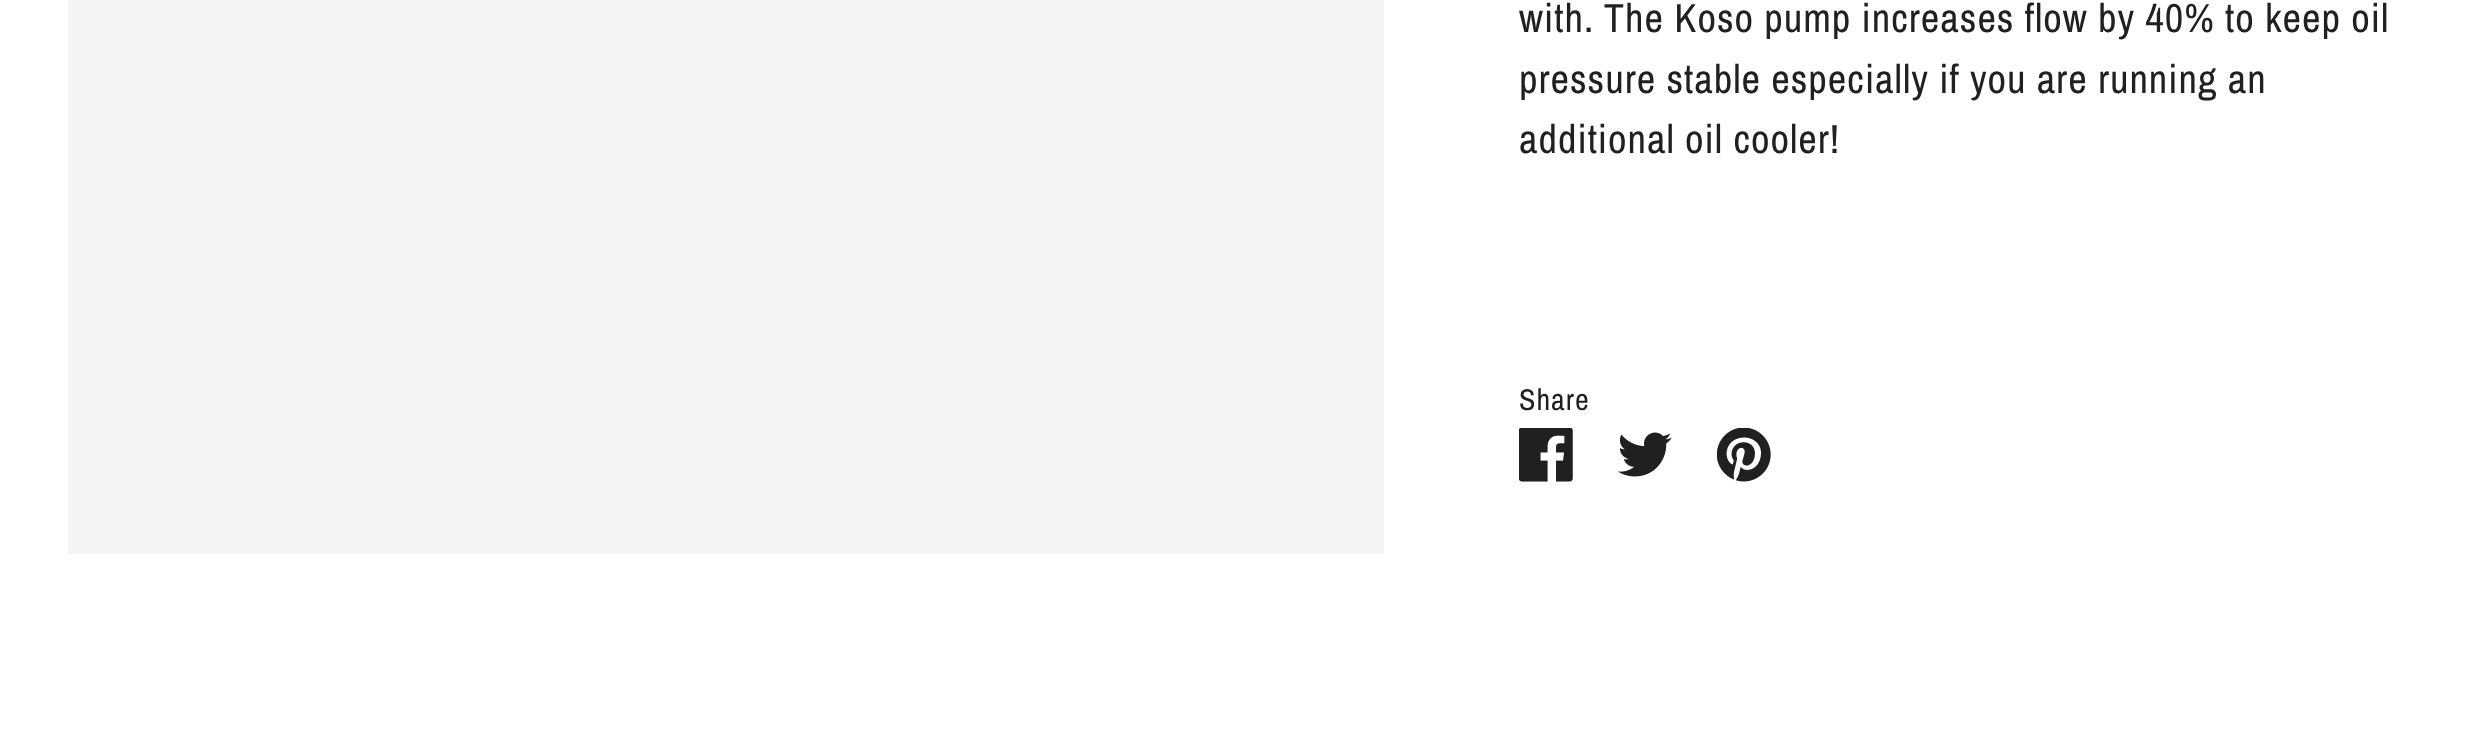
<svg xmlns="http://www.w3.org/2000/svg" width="2485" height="755">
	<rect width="100%" height="100%" fill="#FFFFFF" />
	<rect x="68" y="0" width="1316" height="554" fill="#F4F4F4" />
	<g font-family="Archivo Narrow" font-size="40.5" letter-spacing="1" fill="#202020">
		<text x="1519" y="32">with. The Koso pump increases flow by 40% to keep oil</text>
		<text x="1519" y="93">pressure stable especially if you are running an</text>
		<text x="1519" y="153">additional oil cooler!</text>
	</g>
	<text x="1519" y="410" font-family="Archivo Narrow" font-size="30" letter-spacing="1" fill="#202020">Share</text>
	<image x="1519" y="428" width="54" height="54" href="assets/img1.png" />
	<image x="1618" y="432" width="54" height="45" href="assets/img2.png" />
	<image x="1717" y="428" width="54" height="54" href="assets/img3.png" />
</svg>
